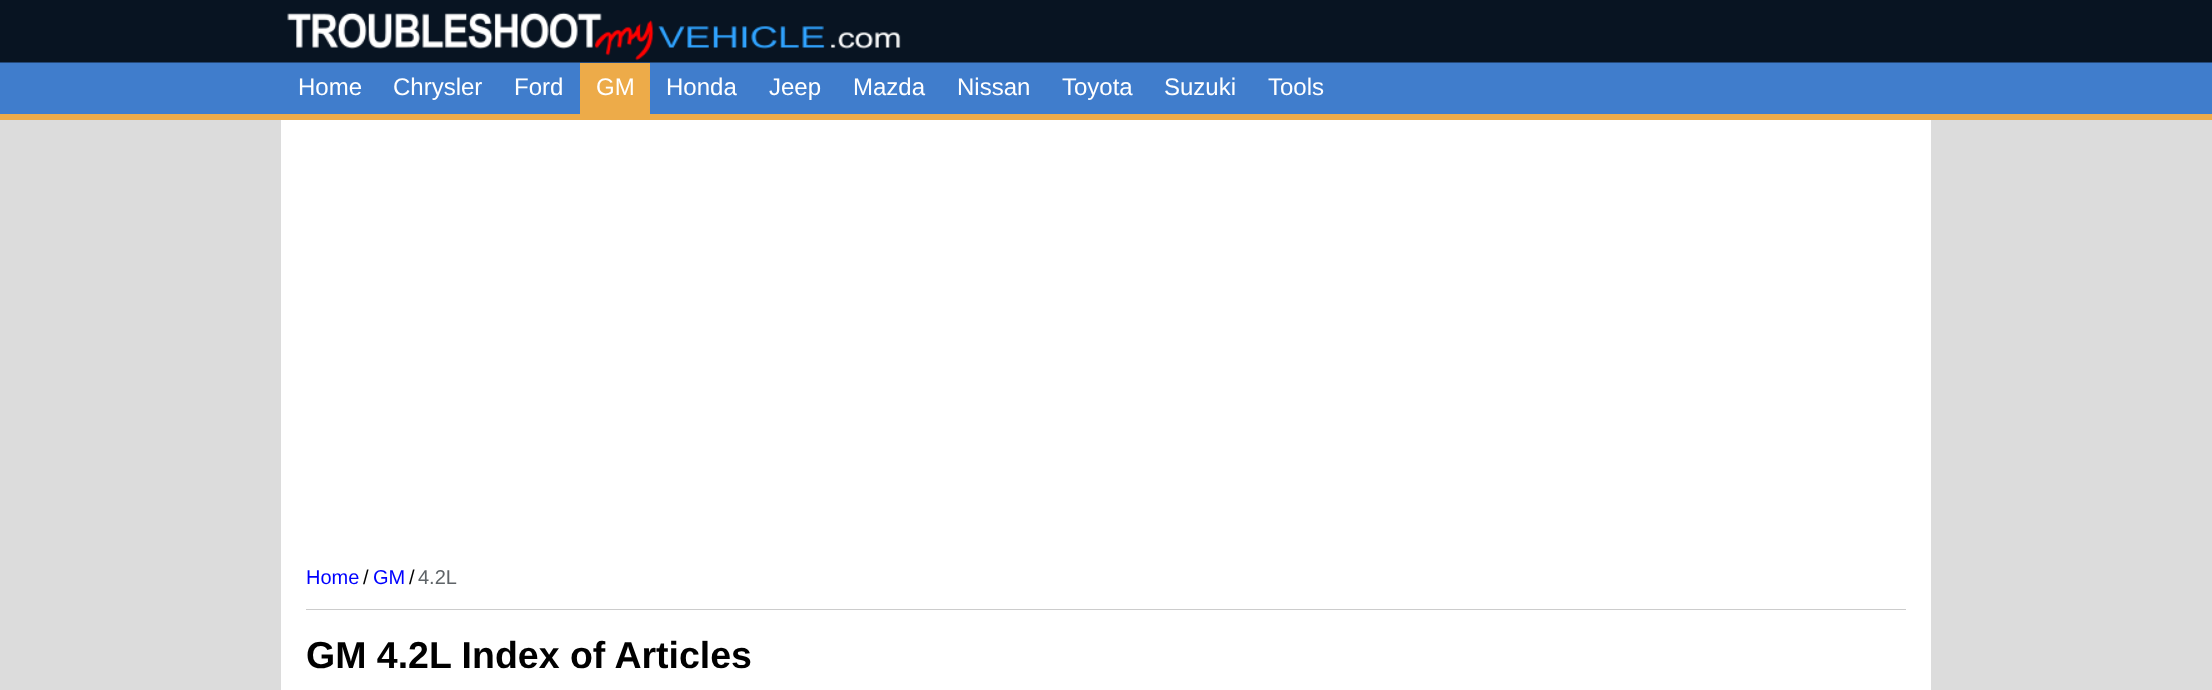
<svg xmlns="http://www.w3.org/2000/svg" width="2212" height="690">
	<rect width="100%" height="100%" fill="#DCDCDC" />
	<image x="0" y="0" width="2212" height="114" href="assets/img1.png" />
	<rect x="0" y="114" width="2212" height="6" fill="#EDAB49" />
	<image x="287" y="12" width="614" height="49" href="assets/img2.png" />
	<g font-family="Liberation Sans" font-size="24" fill="#FFFFFF">
		<text x="298" y="95">Home</text>
		<text x="393" y="95">Chrysler</text>
		<text x="514" y="95">Ford</text>
	</g>
	<rect x="580" y="63" width="70" height="51" fill="#EDAB49" />
	<g font-family="Liberation Sans" font-size="24" fill="#FFFFFF">
		<text x="596" y="95">GM</text>
		<text x="666" y="95">Honda</text>
		<text x="769" y="95">Jeep</text>
		<text x="853" y="95">Mazda</text>
		<text x="957" y="95">Nissan</text>
		<text x="1062" y="95">Toyota</text>
		<text x="1164" y="95">Suzuki</text>
		<text x="1268" y="95">Tools</text>
	</g>
	<rect x="281" y="120" width="1650" height="570" fill="#FFFFFF" />
	<text x="306" y="584" font-family="Liberation Sans" font-size="20" fill="#0000FF">Home</text>
	<text x="363" y="584" font-family="Liberation Sans" font-size="20" fill="#000000">/</text>
	<text x="373" y="584" font-family="Liberation Sans" font-size="20" fill="#0000FF">GM</text>
	<text x="409" y="584" font-family="Liberation Sans" font-size="20" fill="#000000">/</text>
	<text x="418" y="584" font-family="Liberation Sans" font-size="20" fill="#5F6468">4.2L</text>
	<rect x="306" y="609" width="1600" height="1" fill="#CCCCCC" />
	<text x="306" y="668" font-family="Liberation Sans" font-size="37.5" font-weight="700" fill="#000000">GM 4.2L Index of Articles</text>
</svg>
